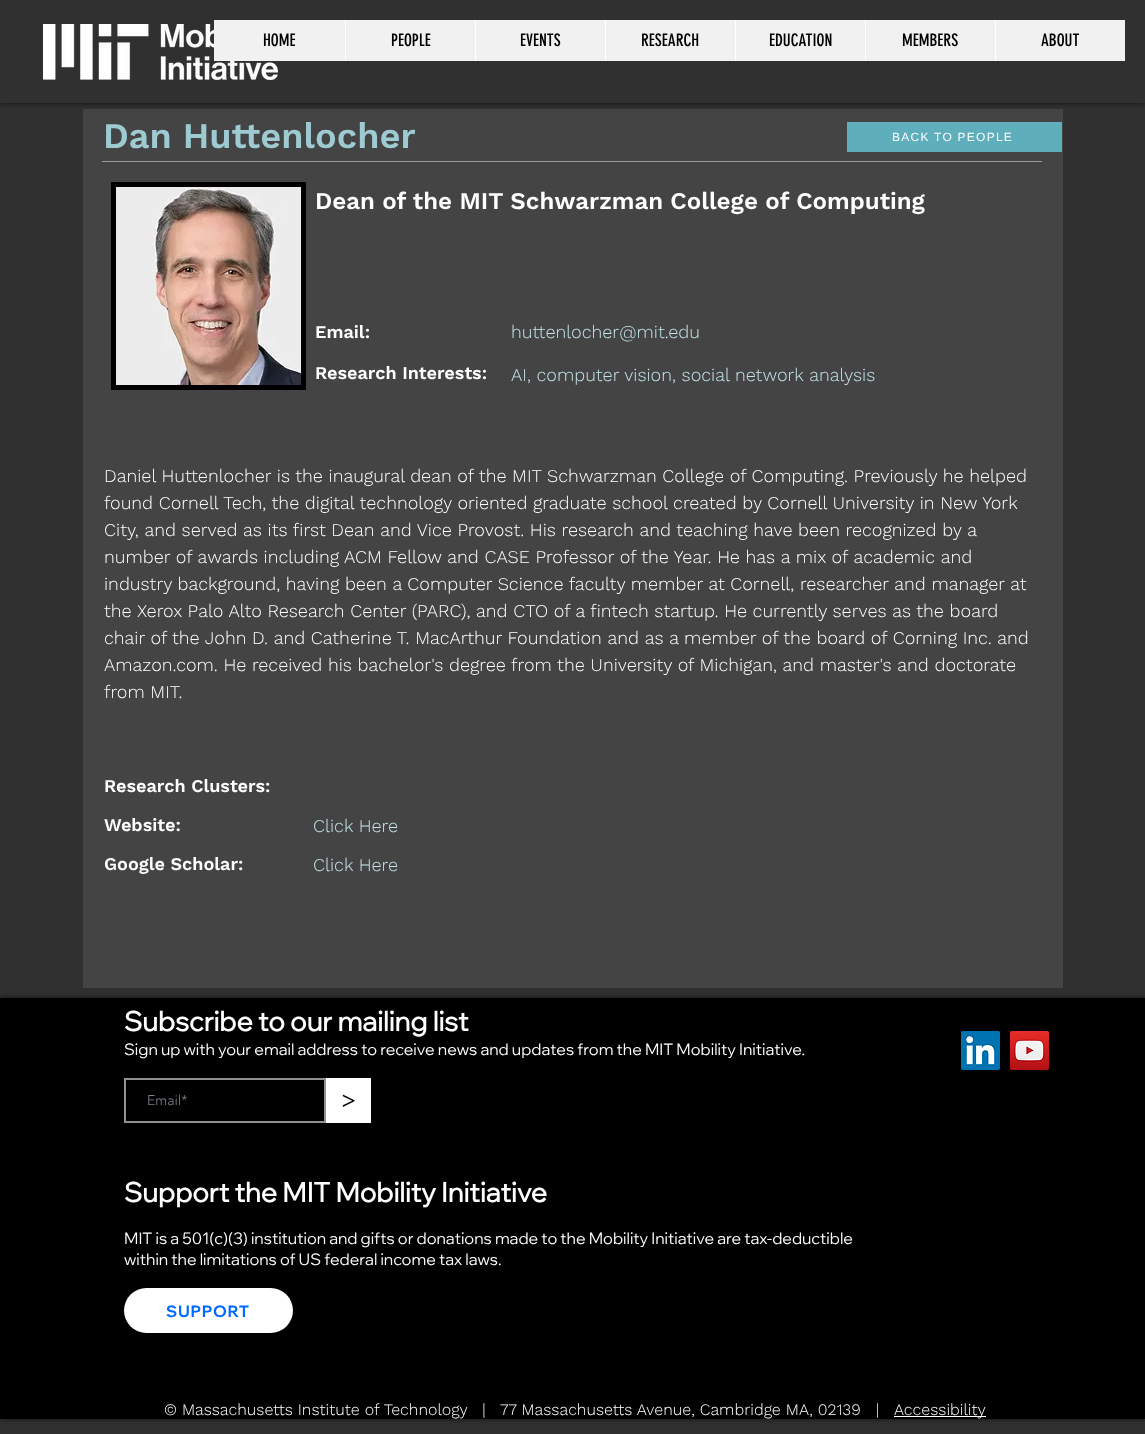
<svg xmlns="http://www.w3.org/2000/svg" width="1145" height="1434">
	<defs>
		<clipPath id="clip1"><rect x="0" y="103" width="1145" height="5" /></clipPath>
	</defs>
	<rect width="100%" height="100%" fill="#303030" />
	<g clip-path="url(#clip1)">
		<rect x="0" y="0" width="1145" height="103" fill="#000000" fill-opacity="0.7" filter="blur(2.5px)" />
	</g>
	<image x="43" y="24" width="235" height="56" href="assets/img1.png" />
	<rect x="214" y="20" width="911" height="41" fill="#F1F1F1" />
	<text x="263" y="46" font-family="'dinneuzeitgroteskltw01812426'" font-size="17" fill="#000000">HOME</text>
	<rect x="345" y="20" width="1" height="41" fill="#FFFFFF" />
	<text x="391" y="46" font-family="'dinneuzeitgroteskltw01812426'" font-size="17" fill="#000000">PEOPLE</text>
	<rect x="475" y="20" width="1" height="41" fill="#FFFFFF" />
	<text x="520" y="46" font-family="'dinneuzeitgroteskltw01812426'" font-size="17" fill="#000000">EVENTS</text>
	<rect x="605" y="20" width="1" height="41" fill="#FFFFFF" />
	<text x="641" y="46" font-family="'dinneuzeitgroteskltw01812426'" font-size="17" fill="#000000">RESEARCH</text>
	<rect x="735" y="20" width="1" height="41" fill="#FFFFFF" />
	<text x="769" y="46" font-family="'dinneuzeitgroteskltw01812426'" font-size="17" fill="#000000">EDUCATION</text>
	<rect x="865" y="20" width="1" height="41" fill="#FFFFFF" />
	<text x="902" y="46" font-family="'dinneuzeitgroteskltw01812426'" font-size="17" fill="#000000">MEMBERS</text>
	<rect x="995" y="20" width="1" height="41" fill="#FFFFFF" />
	<text x="1041" y="46" font-family="'dinneuzeitgroteskltw01812426'" font-size="17" fill="#000000">ABOUT</text>
	<rect x="83" y="109" width="980" height="879" fill="#444444" />
	<text x="103" y="148" font-family="Work Sans" font-size="36" font-weight="600" fill="#9ECAD2">Dan Huttenlocher</text>
	<rect x="847" y="122" width="215" height="30" fill="#5EAEBC" />
	<text x="892" y="141" font-family="Liberation Sans" font-size="12" letter-spacing="1.25" fill="#FFFFFF">BACK TO PEOPLE</text>
	<rect x="102" y="161" width="940" height="1" fill="#999999" />
	<rect x="111" y="182" width="195" height="208" fill="#000000" />
	<image x="116" y="187" width="185" height="198" href="assets/img2.png" />
	<text x="315" y="209" font-family="Work Sans" font-size="24" font-weight="600" fill="#FFFFFF">Dean of the MIT Schwarzman College of Computing</text>
	<text x="315" y="338" font-family="Work Sans" font-size="18" font-weight="600" fill="#FFFFFF">Email:</text>
	<text x="511" y="338" font-family="Work Sans" font-size="18" font-weight="300" fill="#C2E3E8">huttenlocher@mit.edu</text>
	<text x="315" y="379" font-family="Work Sans" font-size="18" font-weight="600" fill="#FFFFFF">Research Interests:</text>
	<text x="511" y="381" font-family="Work Sans" font-size="18" font-weight="300" fill="#C2E3E8">AI, computer vision, social network analysis</text>
	<g font-family="Work Sans" font-size="18" font-weight="300" fill="#FFFFFF">
		<text x="104" y="482">Daniel Huttenlocher is the inaugural dean of the MIT Schwarzman College of Computing. Previously he helped</text>
		<text x="104" y="509">found Cornell Tech, the digital technology oriented graduate school created by Cornell University in New York</text>
		<text x="104" y="536">City, and served as its first Dean and Vice Provost. His research and teaching have been recognized by a</text>
		<text x="104" y="563">number of awards including ACM Fellow and CASE Professor of the Year. He has a mix of academic and</text>
		<text x="104" y="590">industry background, having been a Computer Science faculty member at Cornell, researcher and manager at</text>
		<text x="104" y="617">the Xerox Palo Alto Research Center (PARC), and CTO of a fintech startup. He currently serves as the board</text>
		<text x="104" y="644">chair of the John D. and Catherine T. MacArthur Foundation and as a member of the board of Corning Inc. and</text>
		<text x="104" y="671">Amazon.com. He received his bachelor's degree from the University of Michigan, and master's and doctorate</text>
		<text x="104" y="698">from MIT.</text>
	</g>
	<g font-family="Work Sans" font-size="18" font-weight="600" fill="#FFFFFF">
		<text x="104" y="792">Research Clusters:</text>
		<text x="104" y="831">Website:</text>
	</g>
	<text x="313" y="832" font-family="Work Sans" font-size="18" font-weight="300" fill="#C2E3E8">Click Here</text>
	<text x="104" y="870" font-family="Work Sans" font-size="18" font-weight="600" fill="#FFFFFF">Google Scholar:</text>
	<text x="313" y="871" font-family="Work Sans" font-size="18" font-weight="300" fill="#C2E3E8">Click Here</text>
	<rect x="0" y="998" width="1145" height="421" fill="#000000" fill-opacity="0.7" filter="blur(2.5px)" />
	<rect x="0" y="998" width="1145" height="421" fill="#000000" />
	<text x="124" y="1031" font-family="Wix Madefor Display" font-size="27" font-weight="700" fill="#FFFFFF">Subscribe to our mailing list</text>
	<text x="124" y="1055" font-family="Wix Madefor Display" font-size="16" fill="#FFFFFF">Sign up with your email address to receive news and updates from the MIT Mobility Initiative.</text>
	<image x="961" y="1031" width="39" height="39" href="assets/img3.png" />
	<image x="1010" y="1031" width="39" height="39" href="assets/img4.png" />
	<rect x="125" y="1079" width="200" height="43" fill="none" stroke="#919191" stroke-width="2" />
	<text x="147" y="1105" font-family="'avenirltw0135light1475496'" font-size="14" font-weight="300" fill="#7F808A">Email*</text>
	<rect x="326" y="1078" width="45" height="45" fill="#FFFFFF" />
	<text x="341" y="1109" font-family="Liberation Serif" font-size="25" font-weight="700" font-style="italic" fill="#000000">&gt;</text>
	<text x="124" y="1202" font-family="Wix Madefor Display" font-size="27" font-weight="700" fill="#FFFFFF">Support the MIT Mobility Initiative</text>
	<g font-family="Wix Madefor Display" font-size="16" fill="#FFFFFF">
		<text x="124" y="1244">MIT is a 501(c)(3) institution and gifts or donations made to the Mobility Initiative are tax-deductible</text>
		<text x="124" y="1265">within the limitations of US federal income tax laws.</text>
	</g>
	<rect x="124" y="1288" width="169" height="45" rx="22.5" fill="#FFFFFF" />
	<text x="166" y="1317" font-family="'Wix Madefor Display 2'" font-size="16" font-weight="700" letter-spacing="0.75" fill="#0069FF">SUPPORT</text>
	<text x="164" y="1415" font-family="Work Sans" font-size="16" font-weight="300" fill="#FFFFFF" xml:space="preserve">© Massachusetts Institute of Technology   |   77 Massachusetts Avenue, Cambridge MA, 02139   |</text>
	<rect x="894" y="1416" width="92" height="1" fill="#FFFFFF" />
	<text x="894" y="1415" font-family="Work Sans" font-size="16" font-weight="300" fill="#FFFFFF">Accessibility</text>
</svg>
